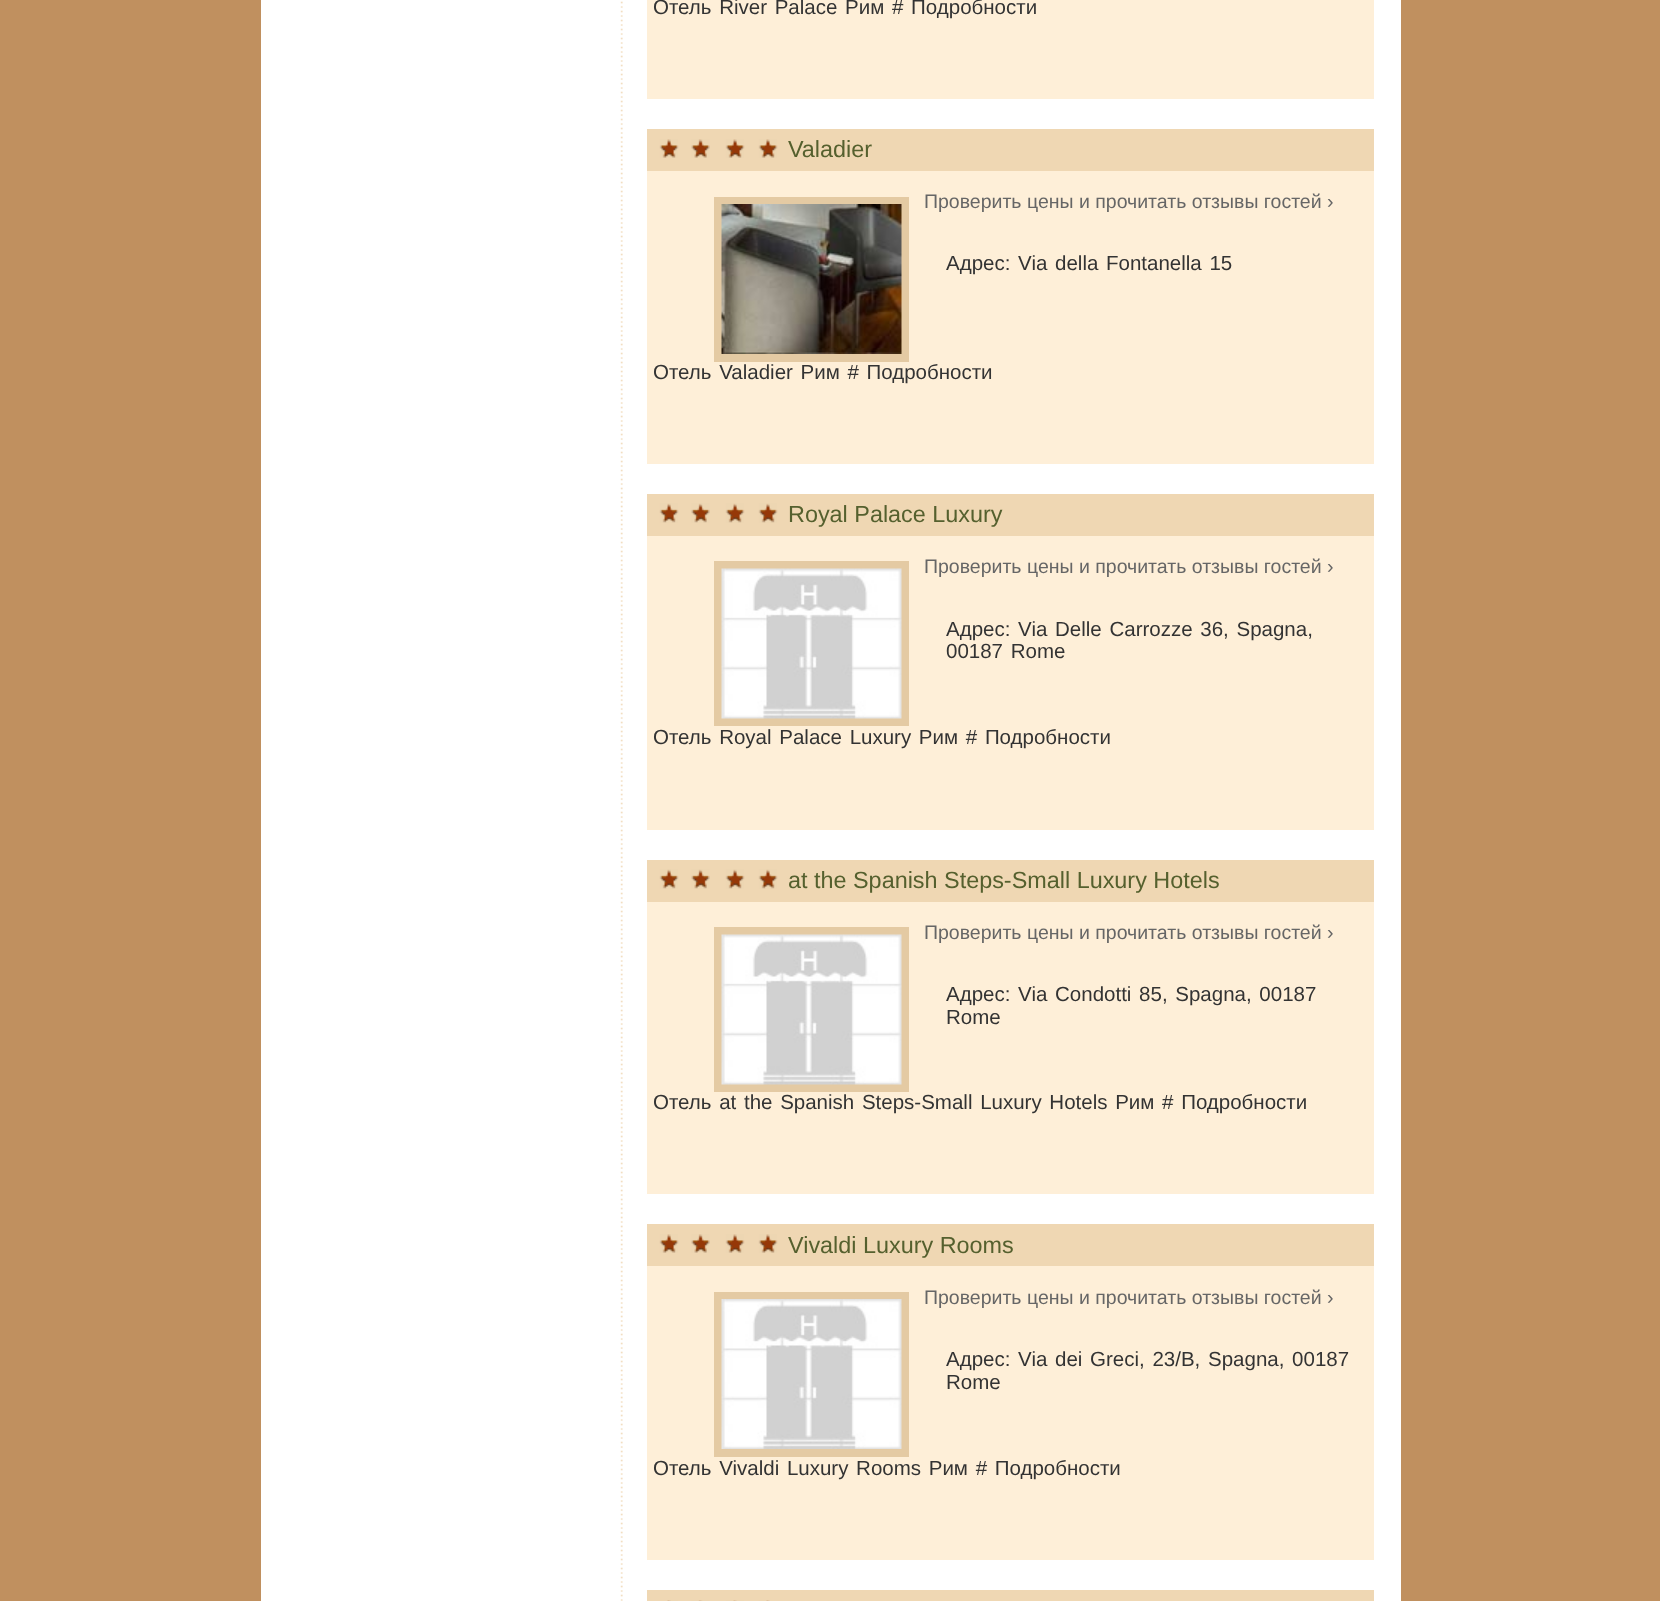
<svg xmlns="http://www.w3.org/2000/svg" width="1660" height="1601">
	<rect width="100%" height="100%" fill="#C0905F" />
	<rect x="261" y="0" width="1140" height="1601" fill="#FFFFFF" />
	<image x="620" y="1" width="3" height="1600" href="assets/img1.png" />
	<rect x="647" y="0" width="727" height="99" fill="#FEEFD8" />
	<text x="653" y="14" word-spacing="2" font-family="Liberation Sans" font-size="20.5" fill="#333333">Отель River Palace Рим # Подробности</text>
	<rect x="647" y="171" width="727" height="293" fill="#FEEFD8" />
	<rect x="647" y="129" width="727" height="42" fill="#EFD7B3" />
	<image x="659" y="139" width="119" height="19" href="assets/img2.png" />
	<text x="788" y="157" font-family="Liberation Sans" font-size="23.4" fill="#55602E">Valadier</text>
	<rect x="714" y="197" width="195" height="165" fill="#E4CAA3" />
	<image x="721" y="204" width="181" height="150" href="assets/img3.png" />
	<text x="924" y="208" font-family="Liberation Sans" font-size="19.5" fill="#666666">Проверить цены и прочитать отзывы гостей ›</text>
	<g font-family="Liberation Sans" font-size="20.5" fill="#333333">
		<text x="946" y="270" word-spacing="2">Адрес: Via della Fontanella 15</text>
		<text x="653" y="379" word-spacing="2">Отель Valadier Рим # Подробности</text>
	</g>
	<rect x="647" y="536" width="727" height="294" fill="#FEEFD8" />
	<rect x="647" y="494" width="727" height="42" fill="#EFD7B3" />
	<image x="659" y="503" width="119" height="20" href="assets/img4.png" />
	<text x="788" y="522" font-family="Liberation Sans" font-size="23.4" fill="#55602E">Royal Palace Luxury</text>
	<rect x="714" y="561" width="195" height="165" fill="#E4CAA3" />
	<image x="721" y="568" width="181" height="151" href="assets/img5.png" />
	<text x="924" y="573" font-family="Liberation Sans" font-size="19.5" fill="#666666">Проверить цены и прочитать отзывы гостей ›</text>
	<g font-family="Liberation Sans" font-size="20.5" fill="#333333">
		<text x="946" y="636" word-spacing="2">Адрес: Via Delle Carrozze 36, Spagna,</text>
		<text x="946" y="658" word-spacing="2">00187 Rome</text>
		<text x="653" y="744" word-spacing="2">Отель Royal Palace Luxury Рим # Подробности</text>
	</g>
	<rect x="647" y="902" width="727" height="292" fill="#FEEFD8" />
	<rect x="647" y="860" width="727" height="42" fill="#EFD7B3" />
	<image x="659" y="869" width="119" height="20" href="assets/img4.png" />
	<text x="788" y="888" font-family="Liberation Sans" font-size="23.4" fill="#55602E">at the Spanish Steps-Small Luxury Hotels</text>
	<rect x="714" y="927" width="195" height="165" fill="#E4CAA3" />
	<image x="721" y="934" width="181" height="151" href="assets/img5.png" />
	<text x="924" y="939" font-family="Liberation Sans" font-size="19.5" fill="#666666">Проверить цены и прочитать отзывы гостей ›</text>
	<g font-family="Liberation Sans" font-size="20.5" fill="#333333">
		<text x="946" y="1001" word-spacing="2">Адрес: Via Condotti 85, Spagna, 00187</text>
		<text x="946" y="1024">Rome</text>
		<text x="653" y="1109" word-spacing="2">Отель at the Spanish Steps-Small Luxury Hotels Рим # Подробности</text>
	</g>
	<rect x="647" y="1266" width="727" height="294" fill="#FEEFD8" />
	<rect x="647" y="1224" width="727" height="42" fill="#EFD7B3" />
	<image x="659" y="1234" width="119" height="19" href="assets/img2.png" />
	<text x="788" y="1253" font-family="Liberation Sans" font-size="23.4" fill="#55602E">Vivaldi Luxury Rooms</text>
	<rect x="714" y="1292" width="195" height="165" fill="#E4CAA3" />
	<image x="721" y="1299" width="181" height="150" href="assets/img6.png" />
	<text x="924" y="1304" font-family="Liberation Sans" font-size="19.5" fill="#666666">Проверить цены и прочитать отзывы гостей ›</text>
	<g font-family="Liberation Sans" font-size="20.5" fill="#333333">
		<text x="946" y="1366" word-spacing="2">Адрес: Via dei Greci, 23/B, Spagna, 00187</text>
		<text x="946" y="1389">Rome</text>
		<text x="653" y="1475" word-spacing="2">Отель Vivaldi Luxury Rooms Рим # Подробности</text>
	</g>
	<rect x="647" y="1590" width="727" height="11" fill="#EFD7B3" />
	<image x="667" y="1600" width="103" height="1" href="assets/img7.png" />
</svg>
